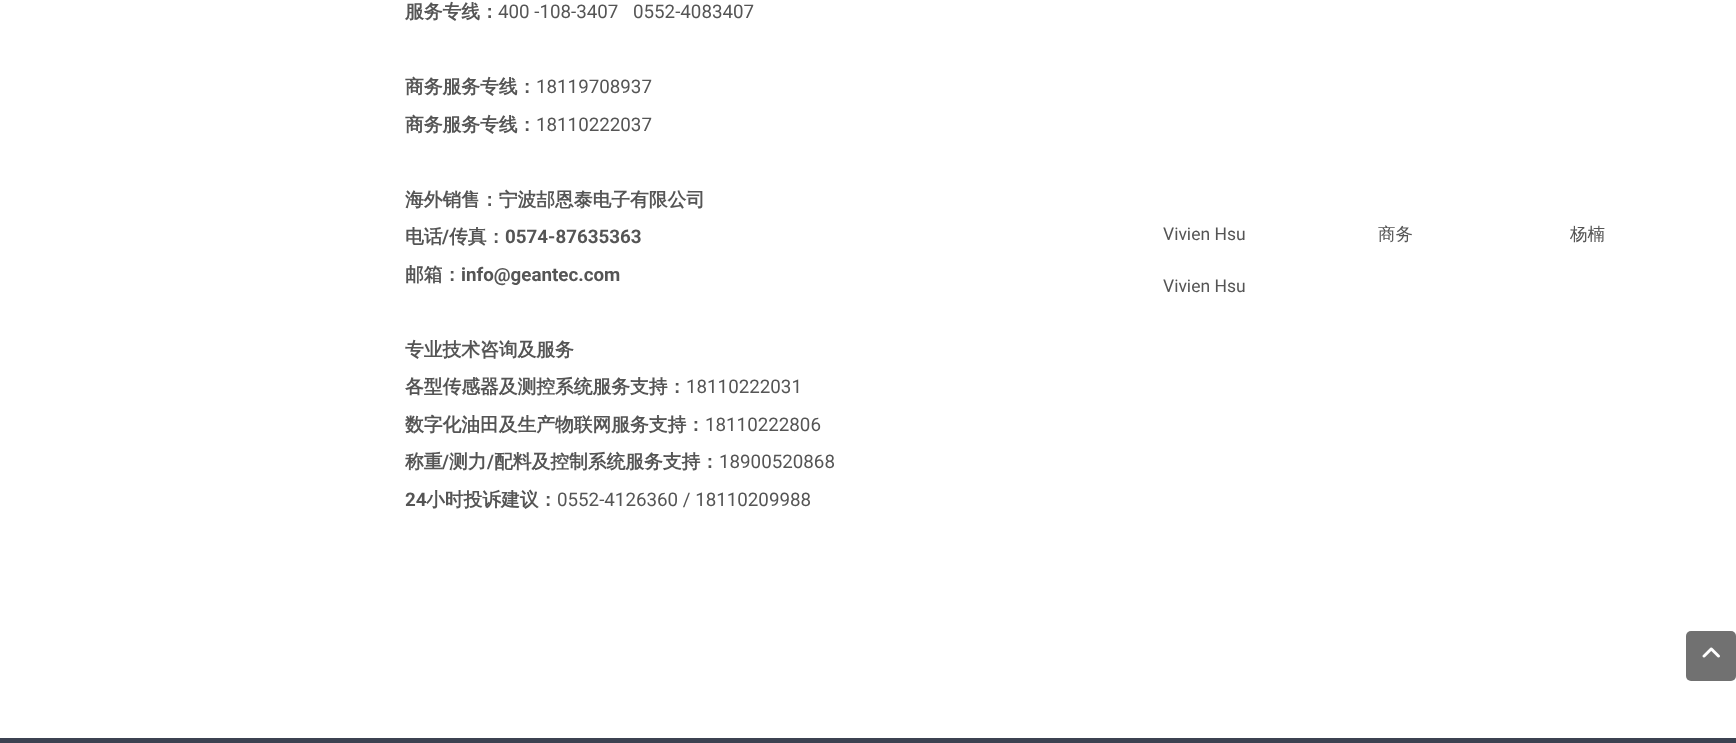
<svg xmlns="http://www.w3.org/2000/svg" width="1736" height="743">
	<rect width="100%" height="100%" fill="#FFFFFF" />
	<text x="405" y="18" font-family="WenQuanYi Zen Hei" font-size="18.75" font-weight="700" fill="#555555">服务专线：</text>
	<g font-family="Roboto" font-size="18.75" fill="#555555">
		<text x="498" y="18">400 -108-3407</text>
		<text x="633" y="18">0552-4083407</text>
	</g>
	<text x="405" y="93" font-family="WenQuanYi Zen Hei" font-size="18.75" font-weight="700" fill="#555555">商务服务专线：</text>
	<text x="536" y="93" font-family="Roboto" font-size="18.75" fill="#555555">18119708937</text>
	<text x="405" y="131" font-family="WenQuanYi Zen Hei" font-size="18.75" font-weight="700" fill="#555555">商务服务专线：</text>
	<text x="536" y="131" font-family="Roboto" font-size="18.75" fill="#555555">18110222037</text>
	<g font-family="WenQuanYi Zen Hei" font-size="18.75" font-weight="700" fill="#555555">
		<text x="405" y="206">海外销售：宁波郆恩泰电子有限公司</text>
		<text x="405" y="243">电话</text>
	</g>
	<text x="442" y="243" font-family="Roboto" font-size="18.75" font-weight="700" fill="#555555">/</text>
	<text x="449" y="243" font-family="WenQuanYi Zen Hei" font-size="18.75" font-weight="700" fill="#555555">传真：</text>
	<text x="505" y="243" font-family="Roboto" font-size="18.75" font-weight="700" fill="#555555">0574-87635363</text>
	<text x="405" y="281" font-family="WenQuanYi Zen Hei" font-size="18.75" font-weight="700" fill="#555555">邮箱：</text>
	<text x="461" y="281" font-family="Roboto" font-size="18.75" font-weight="700" fill="#555555">info@geantec.com</text>
	<g font-family="WenQuanYi Zen Hei" font-size="18.75" font-weight="700" fill="#555555">
		<text x="405" y="356">专业技术咨询及服务</text>
		<text x="405" y="393">各型传感器及测控系统服务支持：</text>
	</g>
	<text x="686" y="393" font-family="Roboto" font-size="18.75" fill="#555555">18110222031</text>
	<text x="405" y="431" font-family="WenQuanYi Zen Hei" font-size="18.75" font-weight="700" fill="#555555">数字化油田及生产物联网服务支持：</text>
	<text x="705" y="431" font-family="Roboto" font-size="18.75" fill="#555555">18110222806</text>
	<text x="405" y="468" font-family="WenQuanYi Zen Hei" font-size="18.75" font-weight="700" fill="#555555">称重</text>
	<text x="442" y="468" font-family="Roboto" font-size="18.75" font-weight="700" fill="#555555">/</text>
	<text x="449" y="468" font-family="WenQuanYi Zen Hei" font-size="18.75" font-weight="700" fill="#555555">测力</text>
	<text x="487" y="468" font-family="Roboto" font-size="18.75" font-weight="700" fill="#555555">/</text>
	<text x="494" y="468" font-family="WenQuanYi Zen Hei" font-size="18.75" font-weight="700" fill="#555555">配料及控制系统服务支持：</text>
	<text x="719" y="468" font-family="Roboto" font-size="18.75" fill="#555555">18900520868</text>
	<text x="405" y="506" font-family="Roboto" font-size="18.75" font-weight="700" fill="#555555">24</text>
	<text x="426" y="506" font-family="WenQuanYi Zen Hei" font-size="18.75" font-weight="700" fill="#555555">小时投诉建议：</text>
	<text x="557" y="506" font-family="Roboto" font-size="18.75" fill="#555555">0552-4126360 / 18110209988</text>
	<text x="1163" y="240" font-family="Roboto" font-size="17.5" fill="#555555">Vivien Hsu</text>
	<g font-family="WenQuanYi Zen Hei" font-size="17.5" font-weight="500" fill="#555555">
		<text x="1378" y="240">商务</text>
		<text x="1570" y="240">杨楠</text>
	</g>
	<text x="1163" y="292" font-family="Roboto" font-size="17.5" fill="#555555">Vivien Hsu</text>
	<rect x="0" y="738" width="1736" height="5" fill="#3C4251" />
	<rect x="1686" y="631" width="50" height="50" rx="5" fill="#717171" />
	<image x="1702" y="647" width="18" height="11" href="assets/img1.png" />
</svg>
